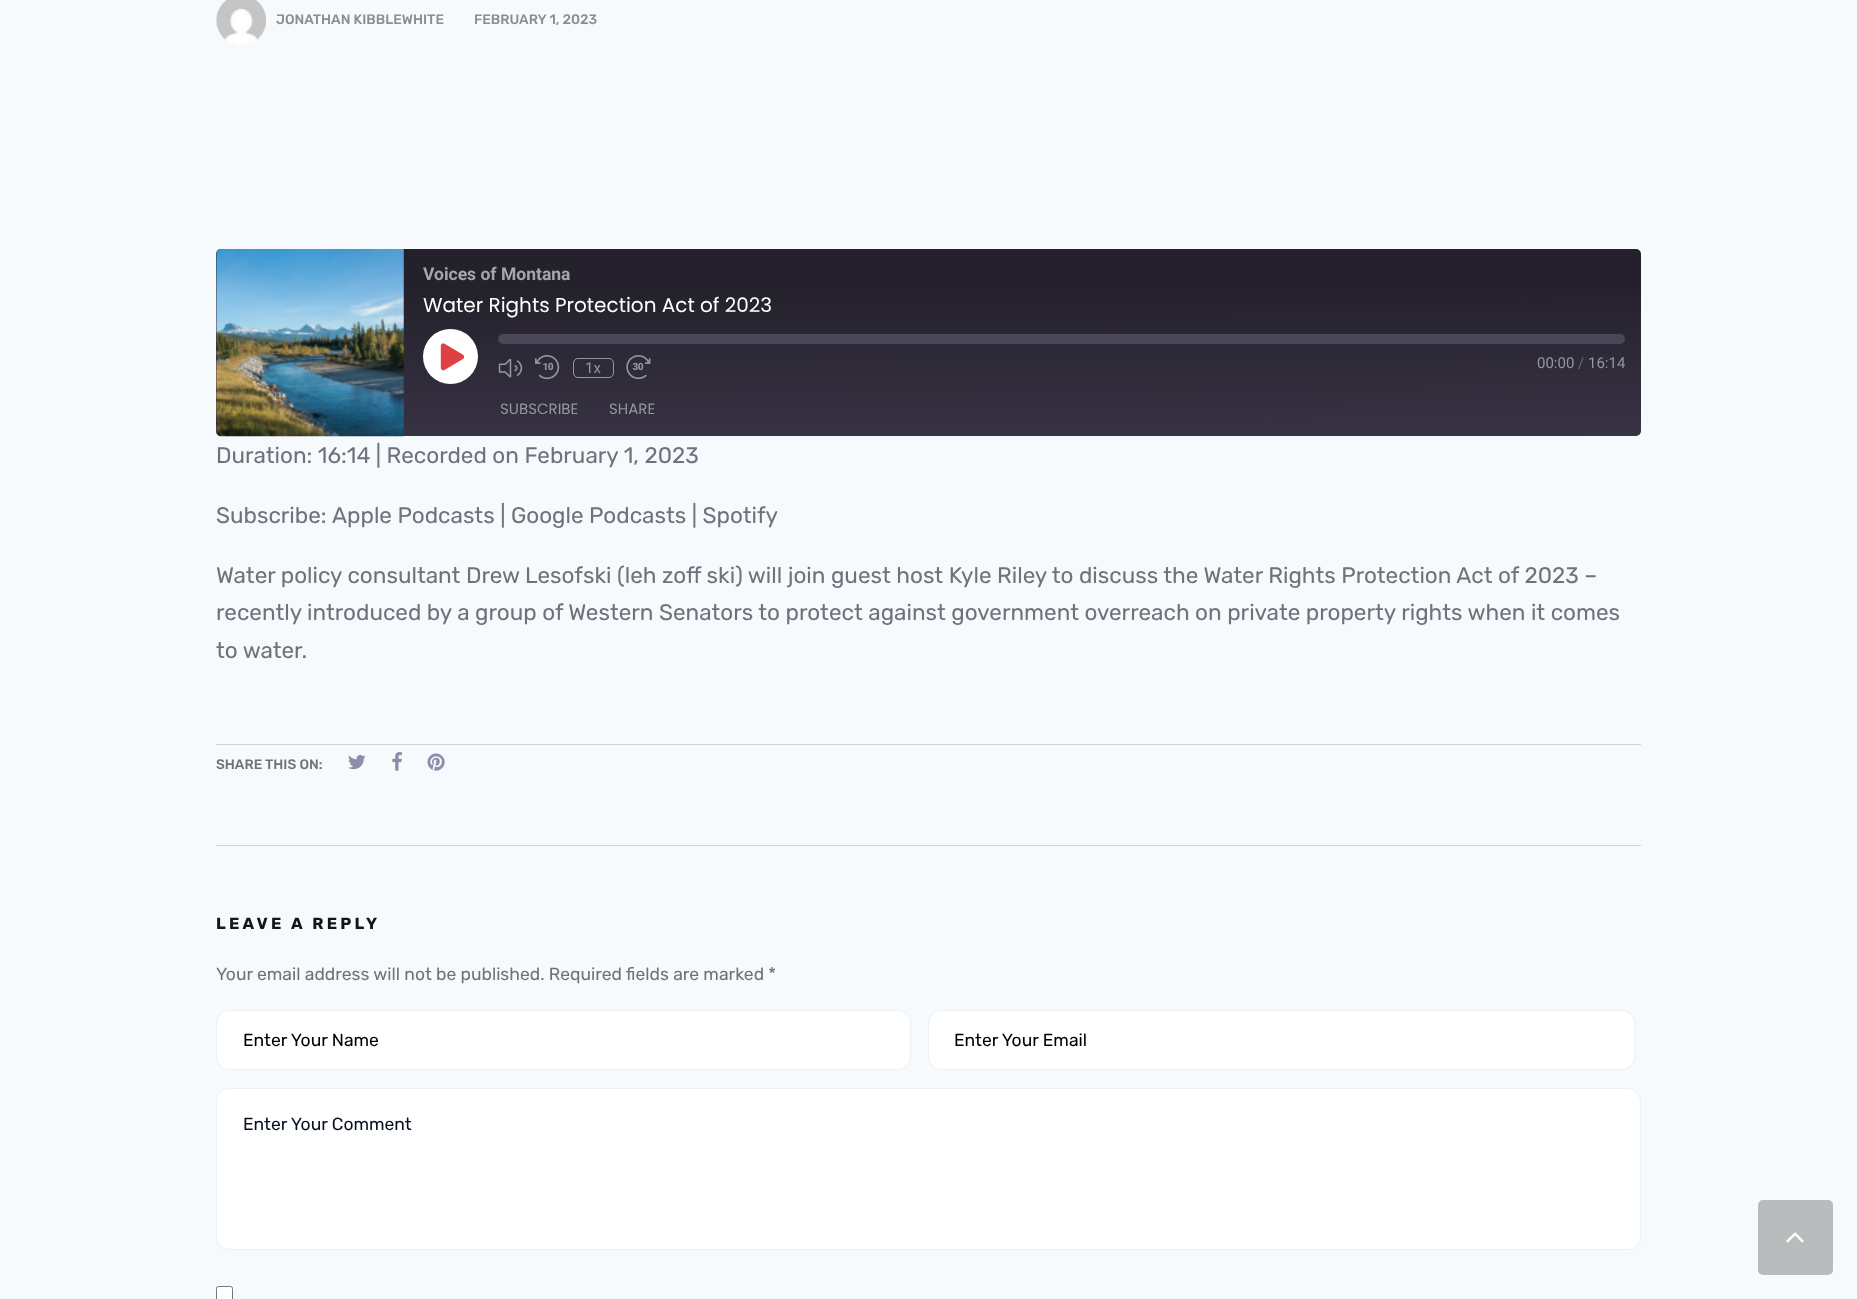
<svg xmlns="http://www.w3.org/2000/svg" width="1857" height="1299">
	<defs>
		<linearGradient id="g1" gradientUnits="userSpaceOnUse" x1="929" y1="440" x2="928" y2="245"><stop offset="0.01" stop-color="#383344" /><stop offset="0.78" stop-color="#24212C" /></linearGradient>
	</defs>
	<rect width="100%" height="100%" fill="#F6FAFC" />
	<image x="216" y="0" width="50" height="45" href="assets/img1.png" />
	<g font-family="Rubik" font-size="13.75" font-weight="500" fill="#888D96">
		<text x="276" y="24">JONATHAN KIBBLEWHITE</text>
		<text x="474" y="24">FEBRUARY 1, 2023</text>
	</g>
	<rect x="216" y="249" width="1425" height="187" rx="5" fill="url(#g1)" />
	<image x="216" y="249" width="188" height="188" href="assets/img2.png" />
	<text x="423" y="280" font-family="Roboto" font-size="17.5" font-weight="700" fill="#A7A6AB">Voices of Montana</text>
	<text x="423" y="312" font-family="Poppins" font-size="20" fill="#FFFFFF">Water Rights Protection Act of 2023</text>
	<circle cx="450.5" cy="356.5" r="27.5" fill="#FFFFFF" />
	<image x="440" y="343" width="25" height="28" href="assets/img3.png" />
	<rect x="498" y="334" width="1127" height="10" rx="5" fill="#4C4659" />
	<image x="498" y="358" width="25" height="20" href="assets/img4.png" />
	<image x="535" y="355" width="25" height="25" href="assets/img5.png" />
	<rect x="573.5" y="358.5" width="40" height="19" rx="4.5" fill="none" stroke="#FFFFFF" stroke-opacity="0.5" />
	<text x="585" y="373" font-family="Roboto" font-size="15" fill="#97959C">1x</text>
	<image x="626" y="355" width="25" height="25" href="assets/img6.png" />
	<text x="1537" y="368" font-family="Roboto" font-size="15" fill="#97959C">00:00</text>
	<text x="1578" y="368" font-family="Roboto" font-size="15" fill="#6D6A74">/</text>
	<text x="1588" y="368" font-family="Roboto" font-size="15" fill="#97959C">16:14</text>
	<g font-family="Poppins" font-size="15" fill="#97959C">
		<text x="500" y="414">SUBSCRIBE</text>
		<text x="609" y="414">SHARE</text>
	</g>
	<g font-family="Rubik" font-size="22.5" fill="#6D727C">
		<text x="216" y="463">Duration: 16:14 | Recorded on February 1, 2023</text>
		<text x="216" y="523">Subscribe:</text>
		<text x="332" y="523">Apple Podcasts | Google Podcasts | Spotify</text>
		<text x="216" y="583">Water policy consultant Drew Lesofski (leh zoff ski) will join guest host Kyle Riley to discuss the Water Rights Protection Act of 2023 –</text>
		<text x="216" y="620">recently introduced by a group of Western Senators to protect against government overreach on private property rights when it comes</text>
		<text x="216" y="658">to water.</text>
	</g>
	<rect x="216" y="744" width="1425" height="1" fill="#CCD4DA" />
	<text x="216" y="769" font-family="Rubik" font-size="13.75" font-weight="500" fill="#6D727C">SHARE THIS ON:</text>
	<image x="348" y="754" width="18" height="16" href="assets/img7.png" />
	<image x="392" y="752" width="10" height="19" href="assets/img8.png" />
	<image x="427" y="753" width="18" height="18" href="assets/img9.png" />
	<rect x="216" y="845" width="1425" height="1" fill="#CCD4DA" />
	<text x="216" y="929" font-family="Rubik" font-size="16.25" font-weight="700" letter-spacing="3.25" fill="#10161B">LEAVE A REPLY</text>
	<text x="216" y="980" font-family="Rubik" font-size="17.5" fill="#6D727C">Your email address will not be published. Required fields are marked *</text>
	<rect x="216.5" y="1010.5" width="694" height="59" rx="12.5" fill="#FFFFFF" stroke="#EAF1F6" />
	<text x="243" y="1046" font-family="Rubik" font-size="17.5" fill="#000000">Enter Your Name</text>
	<rect x="928.5" y="1010.5" width="706" height="59" rx="12.5" fill="#FFFFFF" stroke="#EAF1F6" />
	<text x="954" y="1046" font-family="Rubik" font-size="17.5" fill="#000000">Enter Your Email</text>
	<rect x="216.5" y="1088.5" width="1424" height="161" rx="12.5" fill="#FFFFFF" stroke="#EAF1F6" />
	<text x="243" y="1130" font-family="Rubik" font-size="17.5" fill="#061020">Enter Your Comment</text>
	<rect x="216.5" y="1286.5" width="16" height="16" rx="2" fill="#FFFFFF" stroke="#767676" />
	<rect x="1758" y="1200" width="75" height="75" rx="5" fill="#B9BCBD" />
	<image x="1786" y="1232" width="18" height="11" href="assets/img10.png" />
</svg>
